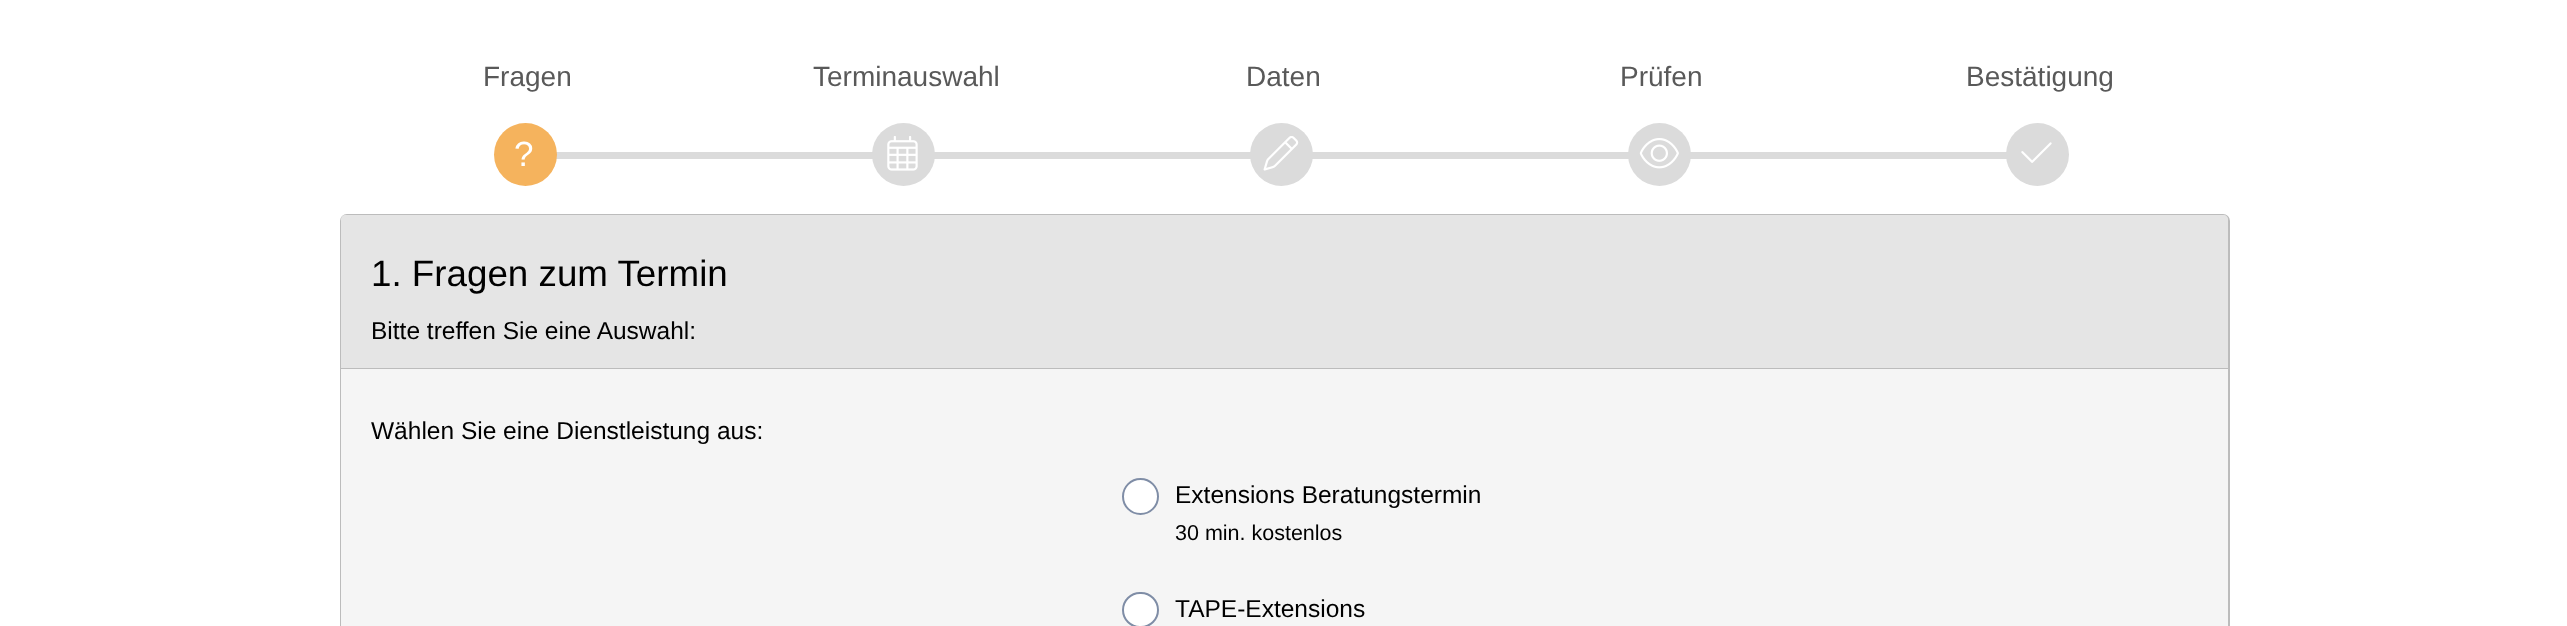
<svg xmlns="http://www.w3.org/2000/svg" width="2567" height="626">
	<rect width="100%" height="100%" fill="#FFFFFF" />
	<text x="483" y="86" font-family="Liberation Sans" font-size="28" fill="#595959">Fragen</text>
	<rect x="556" y="152" width="1451" height="7" fill="#DBDBDB" />
	<circle cx="525.5" cy="154.5" r="31.5" fill="#F5B35D" />
	<text x="514" y="166" font-family="Liberation Sans" font-size="35" fill="#FFFFFF">?</text>
	<text x="813" y="86" font-family="Liberation Sans" font-size="28" fill="#595959">Terminauswahl</text>
	<circle cx="903.5" cy="154.5" r="31.5" fill="#DBDBDB" />
	<image x="887" y="136" width="31" height="35" href="assets/img1.png" />
	<text x="1246" y="86" font-family="Liberation Sans" font-size="28" fill="#595959">Daten</text>
	<circle cx="1281.5" cy="154.5" r="31.5" fill="#DBDBDB" />
	<image x="1263" y="136" width="36" height="35" href="assets/img2.png" />
	<text x="1620" y="86" font-family="Liberation Sans" font-size="28" fill="#595959">Prüfen</text>
	<circle cx="1659.5" cy="154.5" r="31.5" fill="#DBDBDB" />
	<image x="1639" y="138" width="40" height="31" href="assets/img3.png" />
	<text x="1966" y="86" font-family="Liberation Sans" font-size="28" fill="#595959">Bestätigung</text>
	<circle cx="2037.5" cy="154.5" r="31.5" fill="#DBDBDB" />
	<image x="2021" y="142" width="31" height="21" href="assets/img4.png" />
	<rect x="341" y="215" width="1888" height="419" rx="6" fill="none" stroke="#BCBCBC" stroke-width="2" />
	<path d="M345 215H2224C2226 215 2228 217 2228 219V369H341V219C341 217 343 215 345 215Z" fill="#E5E5E5" />
	<rect x="341" y="368" width="1887" height="1" fill="#BCBCBC" />
	<text x="371" y="286" font-family="Liberation Sans" font-size="36.75" fill="#000000">1. Fragen zum Termin</text>
	<text x="371" y="339" font-family="Liberation Sans" font-size="24.5" fill="#000000">Bitte treffen Sie eine Auswahl:</text>
	<rect x="341" y="369" width="1887" height="257" fill="#F5F5F5" />
	<text x="371" y="439" font-family="Liberation Sans" font-size="24.5" fill="#000000">Wählen Sie eine Dienstleistung aus:</text>
	<circle cx="1140.5" cy="496.5" r="17.5" fill="#FFFFFF" stroke="#7F8DA6" stroke-width="2" />
	<text x="1175" y="503" font-family="Liberation Sans" font-size="24.5" fill="#000000">Extensions Beratungstermin</text>
	<text x="1175" y="540" font-family="Liberation Sans" font-size="21.5" fill="#000000">30 min. kostenlos</text>
	<rect x="1123" y="593" width="35" height="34" rx="17" fill="#FFFFFF" stroke="#7F8DA6" stroke-width="2" />
	<text x="1175" y="617" font-family="Liberation Sans" font-size="24.5" fill="#000000">TAPE-Extensions</text>
</svg>
